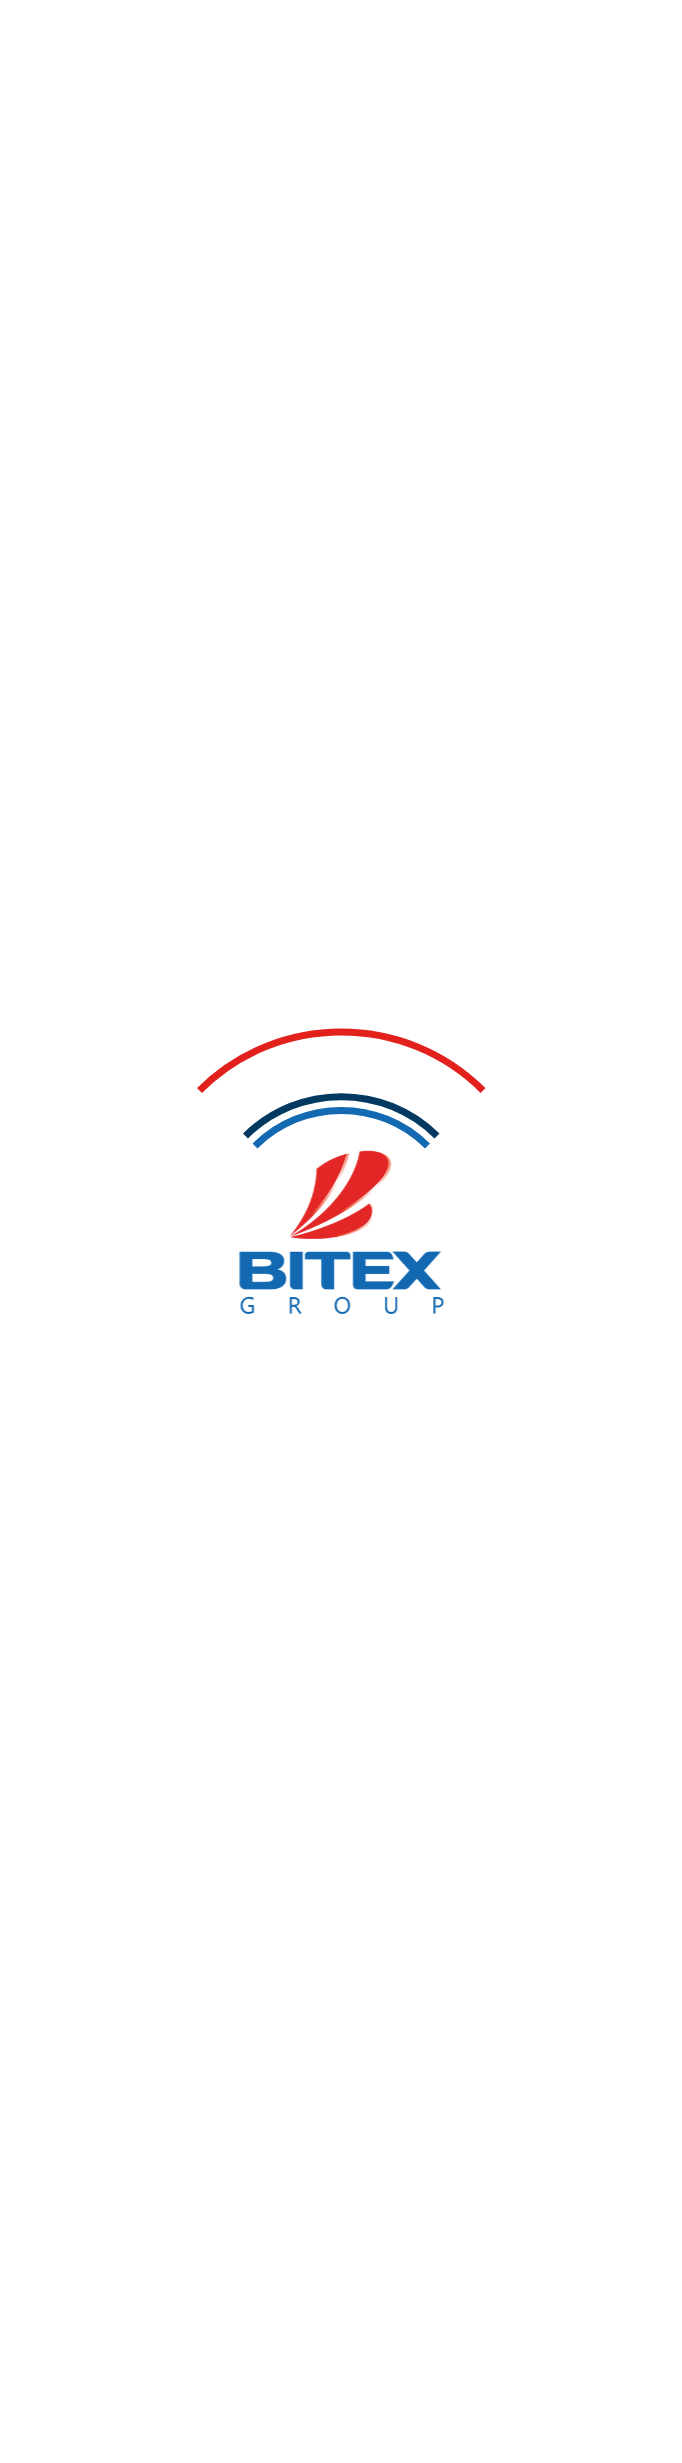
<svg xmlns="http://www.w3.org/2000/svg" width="682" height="2463">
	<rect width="100%" height="100%" fill="#FFFFFF" />
	<image x="239" y="1150" width="206" height="164" href="assets/img1.png" />
	<path d="M199.5 1090.5C277.5 1012.5 405 1012.5 483 1090.5" fill="none" stroke="#E2211C" stroke-width="7" />
	<path d="M255 1146C302.5 1098.5 380 1098.5 427.5 1146" fill="none" stroke="#1369B2" stroke-width="7" />
	<path d="M245.5 1136C298 1083.5 384.5 1083.5 437 1136" fill="none" stroke="#023961" stroke-width="7" />
</svg>
